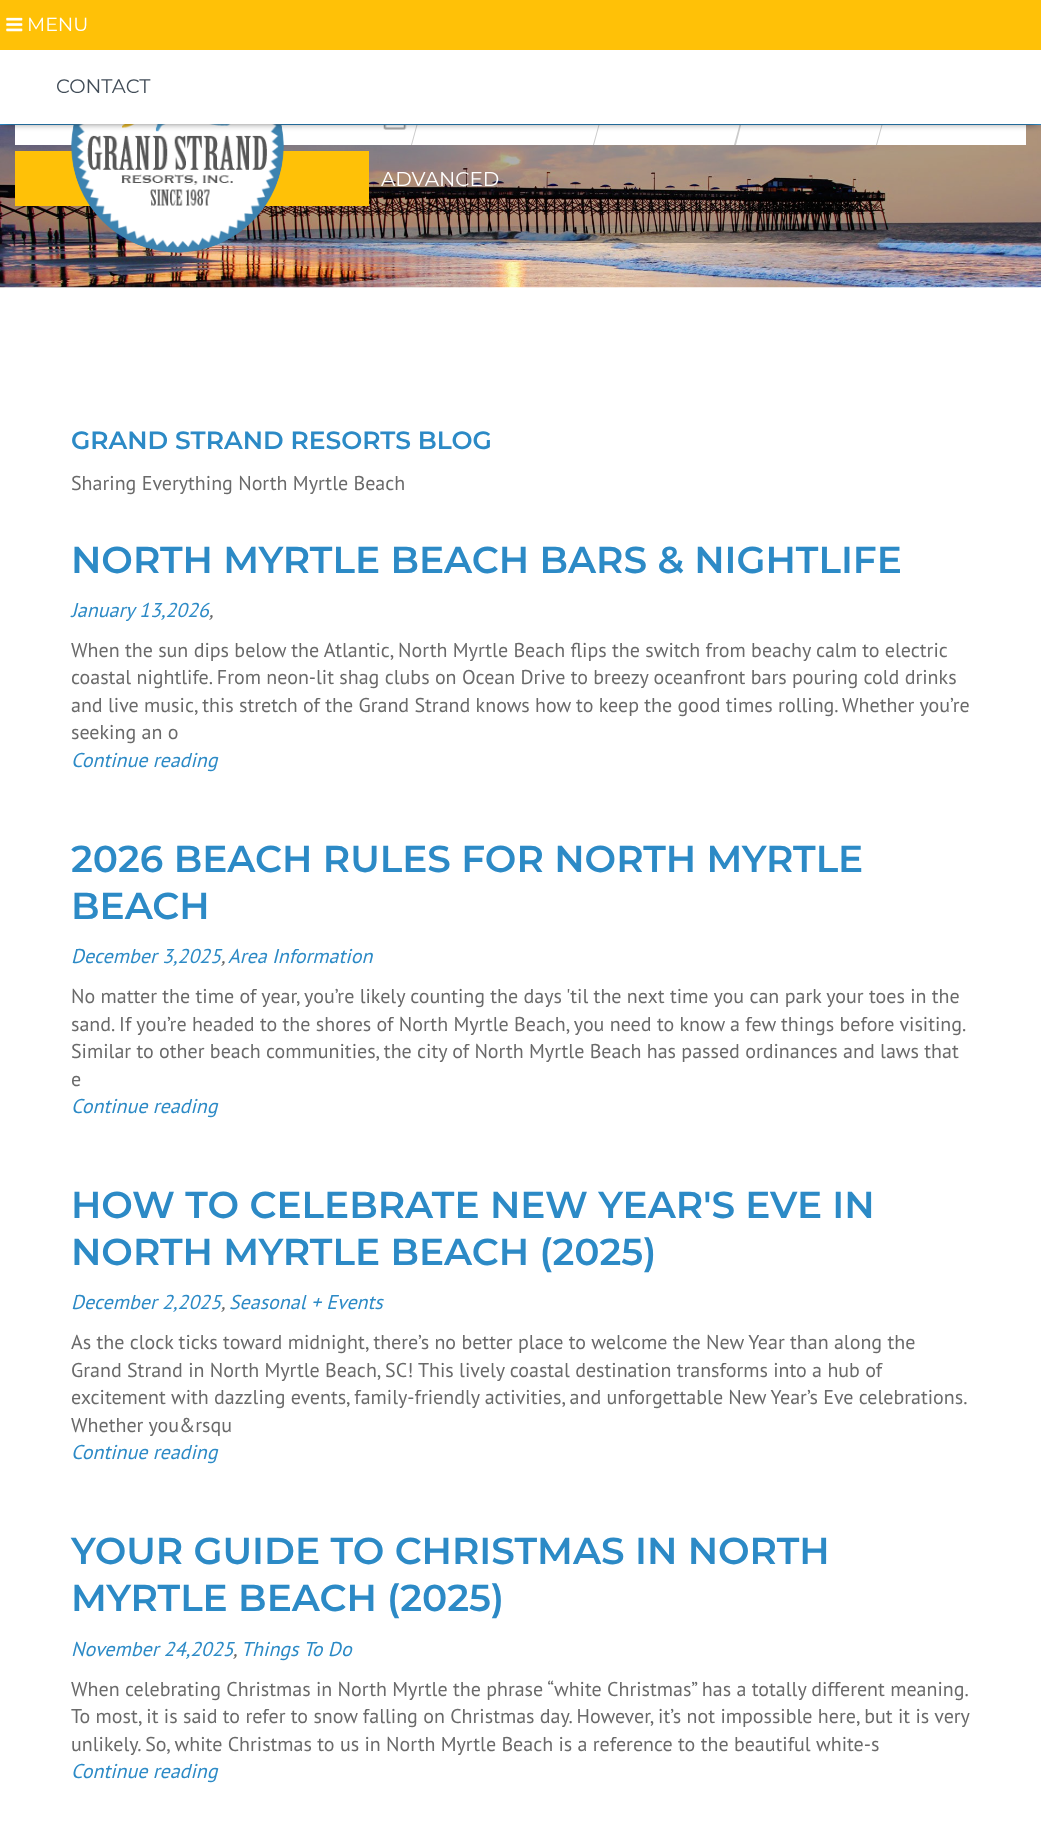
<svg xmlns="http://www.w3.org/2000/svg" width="1041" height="1827">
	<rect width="100%" height="100%" fill="#FFFFFF" />
	<image x="0" y="125" width="1041" height="163" href="assets/img3.png" />
	<rect x="0" y="125" width="1041" height="118" fill="#000000" fill-opacity="0.3" />
	<rect x="281" y="125" width="745" height="20" fill="#FFFFFF" />
	<path d="M426 90H427L412 145H411Z" fill="#CCCCCC" />
	<path d="M608 90H609L594 145H593Z" fill="#CCCCCC" />
	<path d="M749 90H750L736 145H734Z" fill="#CCCCCC" />
	<path d="M891 90H892L877 145H876Z" fill="#CCCCCC" />
	<rect x="0" y="124" width="1041" height="1" fill="#2C8AC6" />
	<rect x="15" y="125" width="60" height="20" fill="#FFFFFF" />
	<rect x="15" y="151" width="354" height="55" fill="#FFC107" />
	<image x="71" y="124" width="213" height="129" href="assets/img2.png" />
	<image x="383" y="125" width="24" height="5" href="assets/img4.png" />
	<rect x="5" y="-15" width="1031" height="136" fill="#000000" filter="blur(5px)" />
	<rect x="0" y="0" width="1041" height="50" fill="#FFC107" />
	<image x="6" y="17" width="17" height="15" href="assets/img1.png" />
	<text x="27" y="31" font-family="Montserrat" font-size="19" fill="#FFFFFF">MENU</text>
	<rect x="0" y="50" width="1041" height="74" fill="#FFFFFF" />
	<text x="56" y="93" font-family="Montserrat" font-size="19.5" fill="#424D58">CONTACT</text>
	<text x="381" y="186" font-family="Montserrat" font-size="20" fill="#FFFFFF">ADVANCED</text>
	<text x="71" y="449" font-family="Montserrat" font-size="25" font-weight="600" fill="#2C8AC6">GRAND STRAND RESORTS BLOG</text>
	<text x="71" y="490" font-family="PT Sans" font-size="20" fill="#6A6A6A">Sharing Everything North Myrtle Beach</text>
	<text x="71" y="573" font-family="Montserrat" font-size="37.5" font-weight="600" fill="#2C8AC6">NORTH MYRTLE BEACH BARS &amp; NIGHTLIFE</text>
	<text x="71" y="617" font-family="PT Sans" font-size="20" font-style="italic" fill="#2C8AC6">January 13,2026</text>
	<text x="209" y="617" font-family="PT Sans" font-size="20" font-style="italic" fill="#6A6A6A">,</text>
	<g font-family="PT Sans" font-size="20" fill="#6A6A6A">
		<text x="71" y="657">When the sun dips below the Atlantic, North Myrtle Beach flips the switch from beachy calm to electric</text>
		<text x="71" y="684">coastal nightlife. From neon-lit shag clubs on Ocean Drive to breezy oceanfront bars pouring cold drinks</text>
		<text x="71" y="712">and live music, this stretch of the Grand Strand knows how to keep the good times rolling. Whether you’re</text>
		<text x="71" y="739">seeking an o</text>
	</g>
	<text x="71" y="767" font-family="PT Sans" font-size="20" font-style="italic" fill="#2C8AC6">Continue reading</text>
	<g font-family="Montserrat" font-size="37.5" font-weight="600" fill="#2C8AC6">
		<text x="71" y="872">2026 BEACH RULES FOR NORTH MYRTLE</text>
		<text x="71" y="919">BEACH</text>
	</g>
	<text x="71" y="963" font-family="PT Sans" font-size="20" font-style="italic" fill="#2C8AC6">December 3,2025</text>
	<text x="221" y="963" font-family="PT Sans" font-size="20" font-style="italic" fill="#6A6A6A">,</text>
	<text x="228" y="963" font-family="PT Sans" font-size="20" font-style="italic" fill="#2C8AC6">Area Information</text>
	<g font-family="PT Sans" font-size="20" fill="#6A6A6A">
		<text x="71" y="1003">No matter the time of year, you’re likely counting the days 'til the next time you can park your toes in the</text>
		<text x="71" y="1031">sand. If you’re headed to the shores of North Myrtle Beach, you need to know a few things before visiting.</text>
		<text x="71" y="1058">Similar to other beach communities, the city of North Myrtle Beach has passed ordinances and laws that</text>
		<text x="71" y="1086">e</text>
	</g>
	<text x="71" y="1113" font-family="PT Sans" font-size="20" font-style="italic" fill="#2C8AC6">Continue reading</text>
	<g font-family="Montserrat" font-size="37.5" font-weight="600" fill="#2C8AC6">
		<text x="71" y="1218">HOW TO CELEBRATE NEW YEAR'S EVE IN</text>
		<text x="71" y="1265">NORTH MYRTLE BEACH (2025)</text>
	</g>
	<text x="71" y="1309" font-family="PT Sans" font-size="20" font-style="italic" fill="#2C8AC6">December 2,2025</text>
	<text x="221" y="1309" font-family="PT Sans" font-size="20" font-style="italic" fill="#6A6A6A">,</text>
	<text x="229" y="1309" font-family="PT Sans" font-size="20" font-style="italic" fill="#2C8AC6">Seasonal + Events</text>
	<g font-family="PT Sans" font-size="20" fill="#6A6A6A">
		<text x="71" y="1349">As the clock ticks toward midnight, there’s no better place to welcome the New Year than along the</text>
		<text x="71" y="1377">Grand Strand in North Myrtle Beach, SC! This lively coastal destination transforms into a hub of</text>
		<text x="71" y="1404" word-spacing="-0.1">excitement with dazzling events, family-friendly activities, and unforgettable New Year’s Eve celebrations.</text>
		<text x="71" y="1432">Whether you&amp;rsqu</text>
	</g>
	<text x="71" y="1459" font-family="PT Sans" font-size="20" font-style="italic" fill="#2C8AC6">Continue reading</text>
	<g font-family="Montserrat" font-size="37.5" font-weight="600" fill="#2C8AC6">
		<text x="71" y="1564">YOUR GUIDE TO CHRISTMAS IN NORTH</text>
		<text x="71" y="1611">MYRTLE BEACH (2025)</text>
	</g>
	<text x="71" y="1656" font-family="PT Sans" font-size="20" font-style="italic" fill="#2C8AC6">November 24,2025</text>
	<text x="233" y="1656" font-family="PT Sans" font-size="20" font-style="italic" fill="#6A6A6A">,</text>
	<text x="241" y="1656" font-family="PT Sans" font-size="20" font-style="italic" fill="#2C8AC6">Things To Do</text>
	<g font-family="PT Sans" font-size="20" fill="#6A6A6A">
		<text x="71" y="1696">When celebrating Christmas in North Myrtle the phrase “white Christmas” has a totally different meaning.</text>
		<text x="71" y="1723">To most, it is said to refer to snow falling on Christmas day. However, it’s not impossible here, but it is very</text>
		<text x="71" y="1751">unlikely. So, white Christmas to us in North Myrtle Beach is a reference to the beautiful white-s</text>
	</g>
	<text x="71" y="1778" font-family="PT Sans" font-size="20" font-style="italic" fill="#2C8AC6">Continue reading</text>
</svg>
